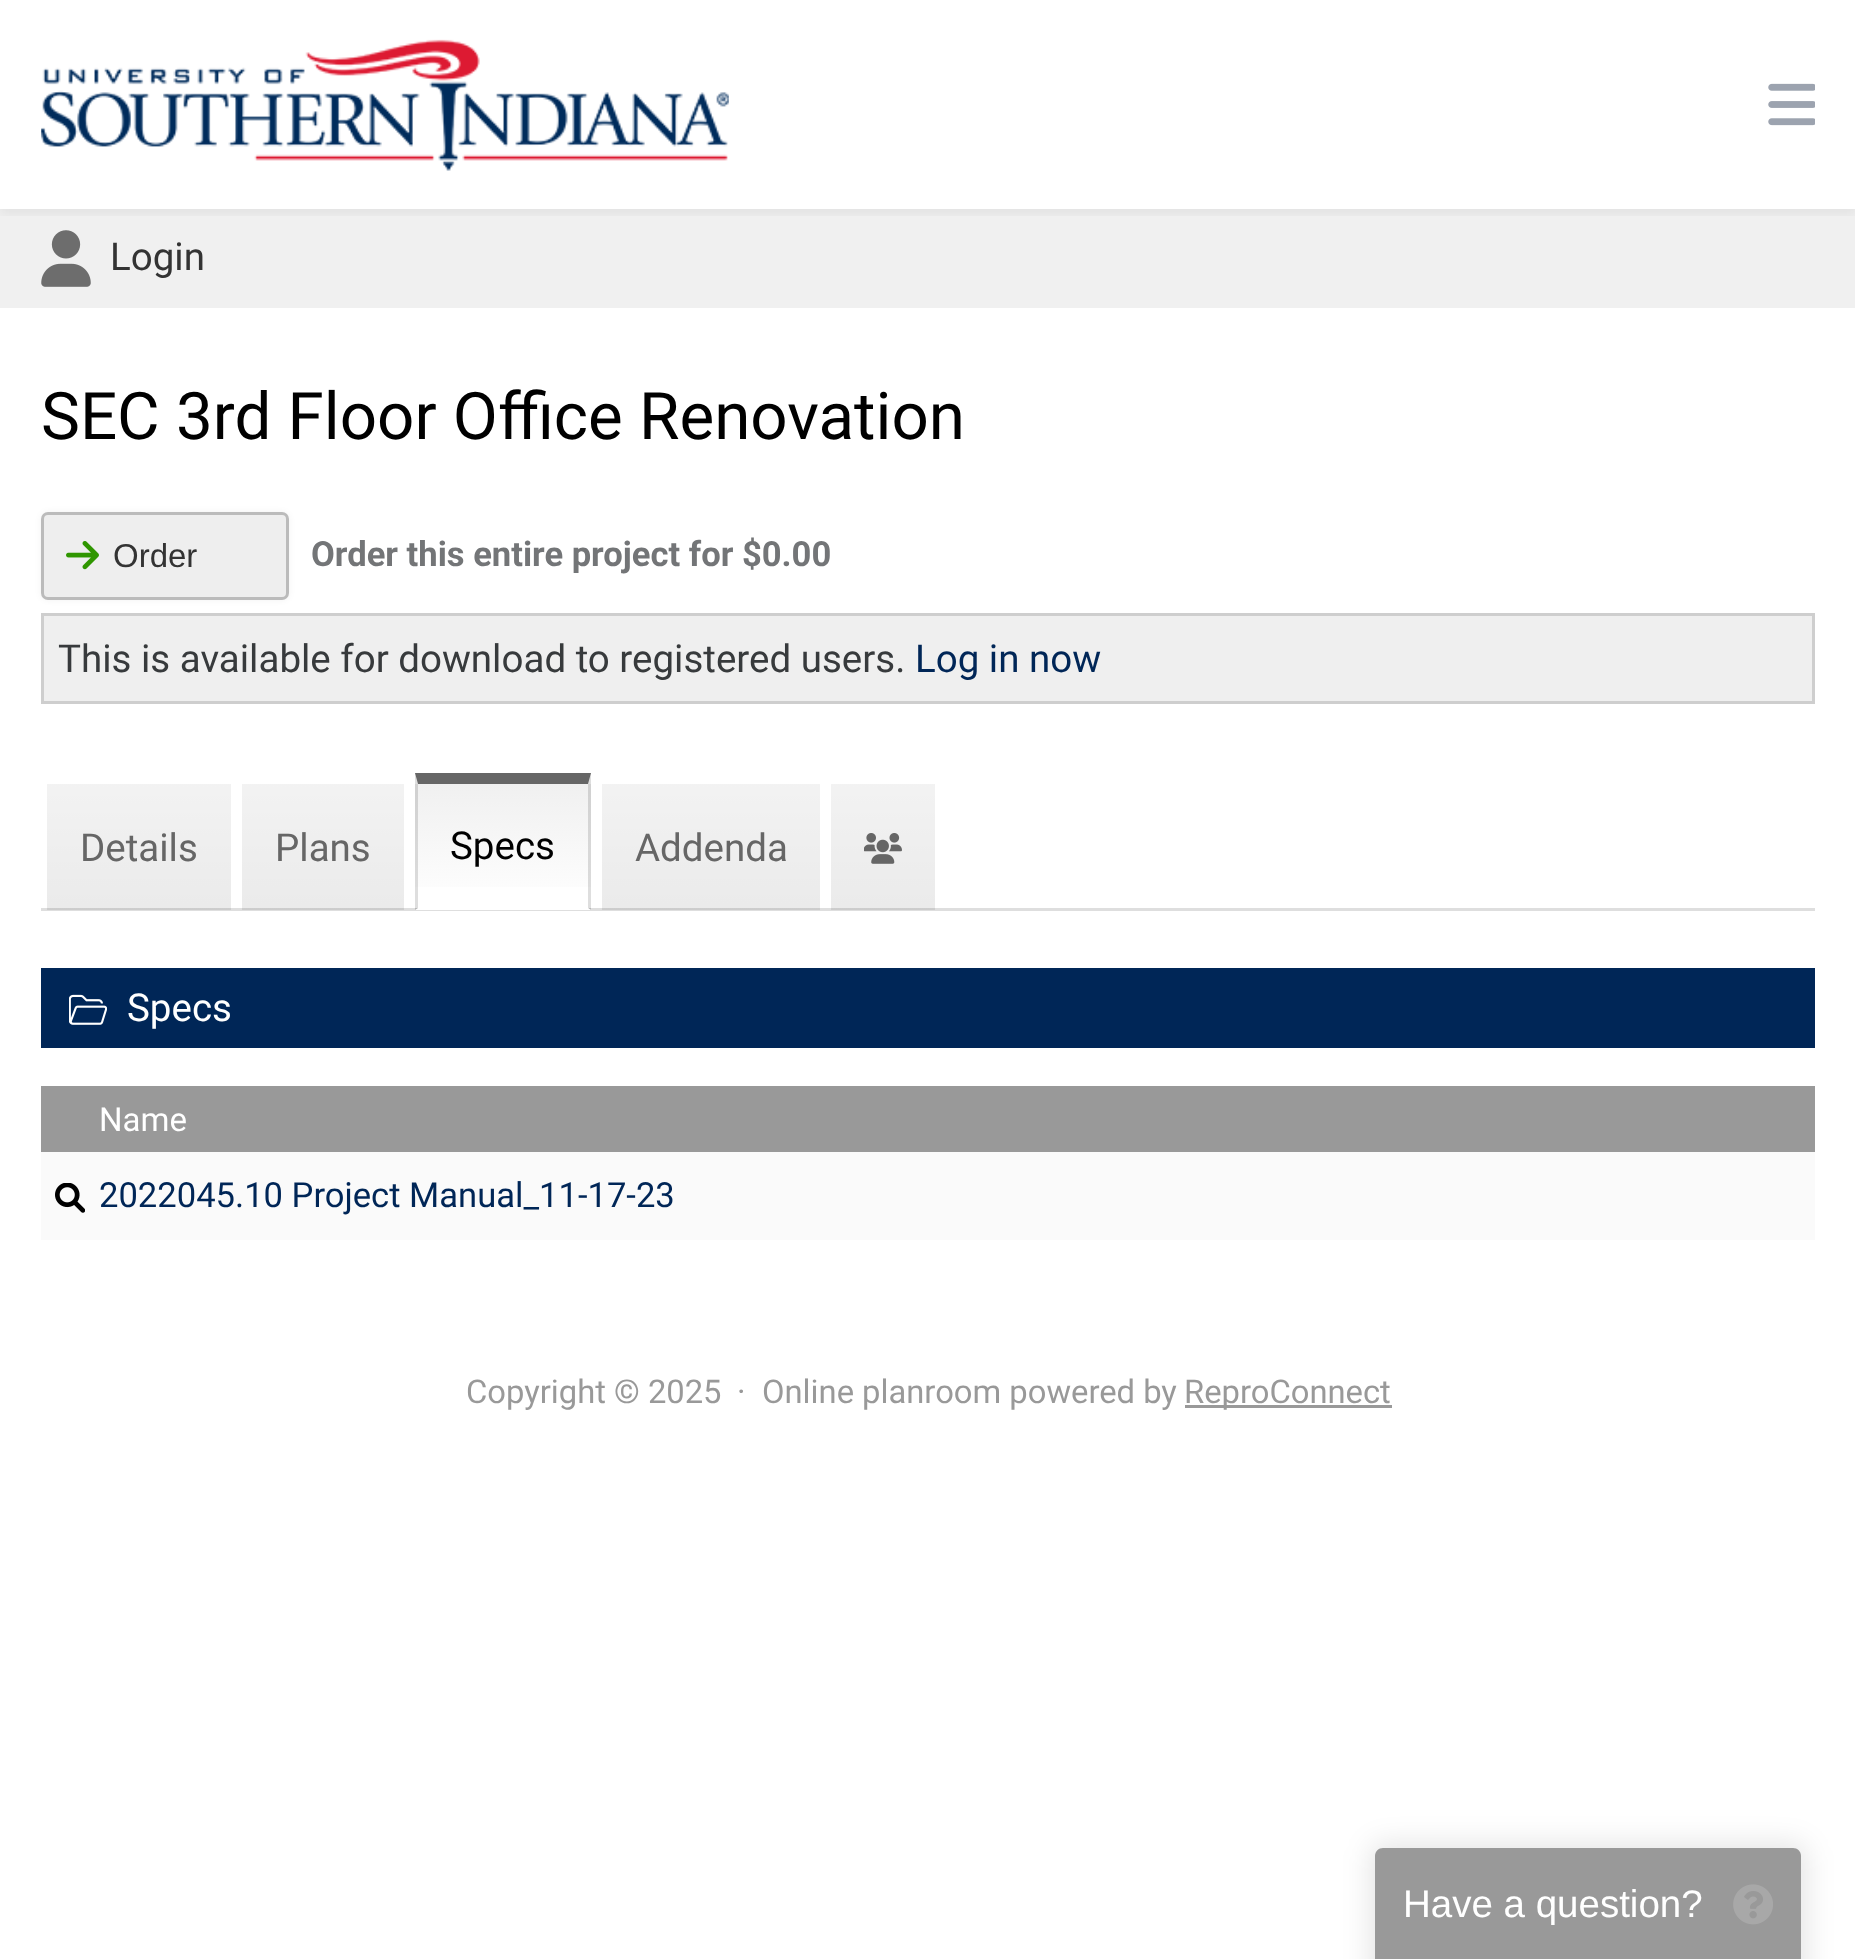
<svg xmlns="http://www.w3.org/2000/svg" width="1855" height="1959">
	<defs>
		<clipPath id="clip1"><rect x="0" y="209" width="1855" height="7" /></clipPath>
		<linearGradient id="g1" gradientUnits="userSpaceOnUse" x1="139" y1="784" x2="139" y2="910"><stop offset="0" stop-color="#000000" stop-opacity="0.05" /><stop offset="1" stop-color="#000000" stop-opacity="0.08" /></linearGradient>
		<linearGradient id="g2" gradientUnits="userSpaceOnUse" x1="323" y1="784" x2="323" y2="910"><stop offset="0" stop-color="#000000" stop-opacity="0.05" /><stop offset="1" stop-color="#000000" stop-opacity="0.08" /></linearGradient>
		<linearGradient id="g3" gradientUnits="userSpaceOnUse" x1="503" y1="784" x2="503" y2="908"><stop offset="0" stop-color="#F0F0F0" /><stop offset="1" stop-color="#FFFFFF" /></linearGradient>
		<linearGradient id="g4" gradientUnits="userSpaceOnUse" x1="503" y1="908" x2="503" y2="1031"><stop offset="0" stop-color="#D1D1D1" /><stop offset="1" stop-color="#DEDEDE" /></linearGradient>
		<linearGradient id="g5" gradientUnits="userSpaceOnUse" x1="711" y1="784" x2="711" y2="910"><stop offset="0" stop-color="#000000" stop-opacity="0.05" /><stop offset="1" stop-color="#000000" stop-opacity="0.08" /></linearGradient>
		<linearGradient id="g6" gradientUnits="userSpaceOnUse" x1="883" y1="784" x2="883" y2="910"><stop offset="0" stop-color="#000000" stop-opacity="0.05" /><stop offset="1" stop-color="#000000" stop-opacity="0.08" /></linearGradient>
		<clipPath id="clip2"><path d="M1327 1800H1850V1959H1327ZM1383 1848H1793C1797.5 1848 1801 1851.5 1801 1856V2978H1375V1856C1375 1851.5 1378.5 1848 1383 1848Z" clip-rule="evenodd" /></clipPath>
	</defs>
	<rect width="100%" height="100%" fill="#FFFFFF" />
	<rect x="0" y="209" width="1855" height="99" fill="#F0F0F0" />
	<image x="41" y="230" width="50" height="57" href="assets/img3.png" />
	<g clip-path="url(#clip1)">
		<rect x="0" y="6" width="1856" height="209" fill="#000000" fill-opacity="0.05" filter="blur(5.5px)" />
	</g>
	<image x="41" y="39" width="688" height="132" href="assets/img1.png" />
	<image x="1768" y="83" width="47" height="43" href="assets/img2.png" />
	<text x="110" y="270" font-family="Roboto" font-size="38.5" fill="#333333">Login</text>
	<text x="41" y="439" font-family="Roboto" font-size="65.5" fill="#000000">SEC 3rd Floor Office Renovation</text>
	<rect x="41" y="512" width="248" height="88" rx="7" fill="#000000" fill-opacity="0.05" filter="blur(3px)" />
	<rect x="42.5" y="513.5" width="245" height="85" rx="5.5" fill="#EEEEEE" stroke="#BBBBBB" stroke-width="3" />
	<image x="66" y="541" width="33" height="29" href="assets/img4.png" />
	<text x="113" y="567" font-family="Liberation Sans" font-size="33" fill="#333333">Order</text>
	<text x="311" y="566" font-family="Roboto" font-size="34.6" font-weight="700" fill="#737577">Order this entire project for $0.00</text>
	<rect x="42.5" y="614.5" width="1771" height="88" fill="#EFEFEF" stroke="#CECECE" stroke-width="3" />
	<text x="58" y="672" font-family="Roboto" font-size="38.5" fill="#373A3C">This is available for download to registered users.</text>
	<text x="915" y="672" font-family="Roboto" font-size="38.5" fill="#002657">Log in now</text>
	<rect x="41" y="908" width="1774" height="3" fill="#DEDEDE" />
	<rect x="47" y="784" width="184" height="126" fill="url(#g1)" />
	<text x="80" y="861" font-family="Roboto" font-size="38.5" fill="#666666">Details</text>
	<rect x="242" y="784" width="162" height="126" fill="url(#g2)" />
	<text x="275" y="861" font-family="Roboto" font-size="38.5" fill="#666666">Plans</text>
	<rect x="415" y="784" width="176" height="103" fill="url(#g3)" />
	<rect x="415" y="908" width="176" height="2" fill="url(#g4)" />
	<path d="M415 773H591L588 784H418Z" fill="#666666" />
	<path d="M591 773V910L588 908V784Z" fill="#000000" fill-opacity="0.13" />
	<path d="M591 910H415L418 908H588Z" fill="#FFFFFF" />
	<path d="M415 910V773L418 784V908Z" fill="#000000" fill-opacity="0.13" />
	<text x="450" y="859" font-family="Roboto" font-size="38.5" fill="#000000">Specs</text>
	<rect x="602" y="784" width="218" height="126" fill="url(#g5)" />
	<text x="635" y="861" font-family="Roboto" font-size="38.5" fill="#666666">Addenda</text>
	<rect x="831" y="784" width="104" height="126" fill="url(#g6)" />
	<image x="864" y="833" width="38" height="31" href="assets/img5.png" />
	<rect x="41" y="968" width="1774" height="80" fill="#002657" />
	<image x="69" y="994" width="38" height="31" href="assets/img6.png" />
	<text x="127" y="1021" font-family="Roboto" font-size="38.5" fill="#FFFFFF">Specs</text>
	<rect x="41" y="1086" width="1774" height="66" fill="#999999" />
	<text x="99" y="1131" font-family="Roboto" font-size="33" fill="#FFFFFF">Name</text>
	<rect x="41" y="1152" width="1774" height="88" fill="#FAFAFA" />
	<image x="55" y="1183" width="30" height="30" href="assets/img7.png" />
	<text x="99" y="1207" font-family="Roboto" font-size="34.6" fill="#002657">2022045.10 Project Manual_11-17-23</text>
	<g font-family="Roboto" font-size="32.75" fill="#999999">
		<text x="466" y="1403">Copyright © 2025</text>
		<text x="737" y="1403">·</text>
		<text x="762" y="1403">Online planroom powered by</text>
	</g>
	<rect x="1185" y="1405" width="207" height="3" fill="#999999" />
	<text x="1184" y="1403" font-family="Roboto" font-size="32.75" fill="#999999">ReproConnect</text>
	<g clip-path="url(#clip2)">
		<rect x="1370" y="1843" width="437" height="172" rx="14" fill="#000000" fill-opacity="0.1" filter="blur(14px)" />
	</g>
	<path d="M1383 1848H1793C1797.5 1848 1801 1851.5 1801 1856V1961H1375V1856C1375 1851.5 1378.5 1848 1383 1848Z" fill="#333333" fill-opacity="0.5" />
	<text x="1403" y="1917" font-family="Liberation Sans" font-size="38.5" fill="#FFFFFF">Have a question?</text>
	<image x="1733" y="1884" width="40" height="41" href="assets/img8.png" />
</svg>
